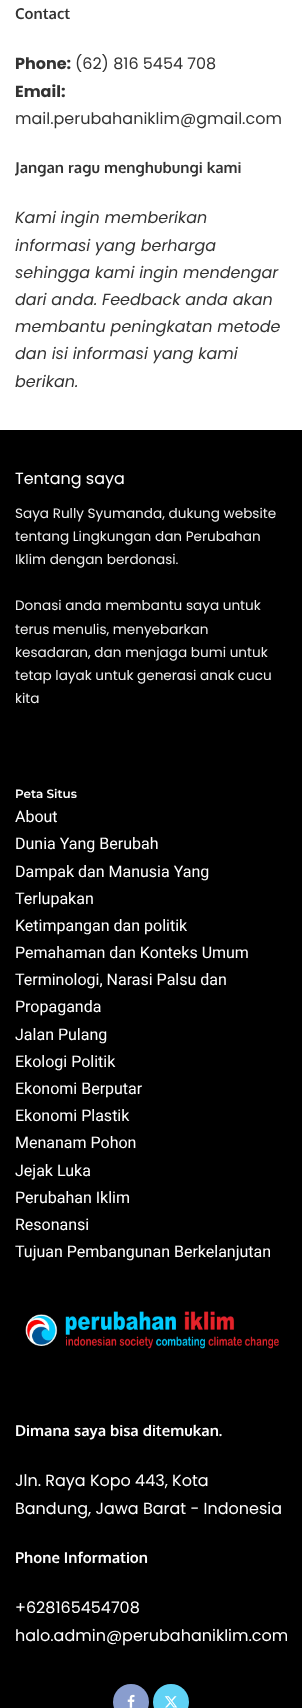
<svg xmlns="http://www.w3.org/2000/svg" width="302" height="1708">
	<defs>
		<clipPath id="clip1"><rect x="15" y="0" width="272" height="395" /></clipPath>
		<clipPath id="clip2"><rect x="15" y="1395" width="272" height="254" /></clipPath>
	</defs>
	<rect width="100%" height="100%" fill="#FFFFFF" />
	<text x="15" y="19" font-family="Oxygen" font-size="15" font-weight="700" fill="#333333">Contact</text>
	<text x="15" y="69" font-family="Poppins" font-size="16" font-weight="700" fill="#333333">Phone:</text>
	<text x="75" y="69" font-family="Poppins" font-size="16" fill="#333333">(62) 816 5454 708</text>
	<text x="15" y="97" font-family="Poppins" font-size="16" font-weight="700" fill="#333333">Email:</text>
	<text x="15" y="124" font-family="Poppins" font-size="16" fill="#333333">mail.perubahaniklim@gmail.com</text>
	<g clip-path="url(#clip1)">
		<text x="15" y="173" font-family="Oxygen" font-size="15" font-weight="700" fill="#333333">Jangan ragu menghubungi kami</text>
	</g>
	<g font-family="Poppins" font-size="16" font-style="italic" fill="#333333">
		<text x="15" y="223">Kami ingin memberikan</text>
		<text x="15" y="251">informasi yang berharga</text>
		<text x="15" y="278">sehingga kami ingin mendengar</text>
		<text x="15" y="305">dari anda. Feedback anda akan</text>
		<text x="15" y="332">membantu peningkatan metode</text>
		<text x="15" y="359">dan isi informasi yang kami</text>
		<text x="15" y="387">berikan.</text>
	</g>
	<rect x="0" y="430" width="302" height="1278" fill="#000000" />
	<text x="15" y="484" font-family="Poppins" font-size="16" fill="#FFFFFF">Tentang saya</text>
	<g font-family="Poppins" font-size="13.6" fill="#EFEFEF">
		<text x="15" y="518">Saya Rully Syumanda, dukung website</text>
		<text x="15" y="541">tentang Lingkungan dan Perubahan</text>
		<text x="15" y="564">Iklim dengan berdonasi.</text>
		<text x="15" y="610">Donasi anda membantu saya untuk</text>
		<text x="15" y="634">terus menulis, menyebarkan</text>
		<text x="15" y="657">kesadaran, dan menjaga bumi untuk</text>
		<text x="15" y="680">tetap layak untuk generasi anak cucu</text>
		<text x="15" y="703">kita</text>
	</g>
	<text x="15" y="798" font-family="Montserrat" font-size="12" font-weight="600" fill="#FFFFFF">Peta Situs</text>
	<g font-family="Roboto" font-size="16" fill="#FFFFFF">
		<text x="15" y="822">About</text>
		<text x="15" y="849">Dunia Yang Berubah</text>
		<text x="15" y="877">Dampak dan Manusia Yang</text>
		<text x="15" y="904">Terlupakan</text>
		<text x="15" y="931">Ketimpangan dan politik</text>
		<text x="15" y="958">Pemahaman dan Konteks Umum</text>
		<text x="15" y="985">Terminologi, Narasi Palsu dan</text>
		<text x="15" y="1012">Propaganda</text>
		<text x="15" y="1040">Jalan Pulang</text>
		<text x="15" y="1067">Ekologi Politik</text>
		<text x="15" y="1094">Ekonomi Berputar</text>
		<text x="15" y="1121">Ekonomi Plastik</text>
		<text x="15" y="1148">Menanam Pohon</text>
		<text x="15" y="1176">Jejak Luka</text>
		<text x="15" y="1203">Perubahan Iklim</text>
		<text x="15" y="1230">Resonansi</text>
		<text x="15" y="1257">Tujuan Pembangunan Berkelanjutan</text>
	</g>
	<image x="25" y="1311" width="254" height="38" href="assets/img1.png" />
	<text x="15" y="1436" font-family="Oxygen" font-size="15" font-weight="700" fill="#FFFFFF">Dimana saya bisa ditemukan.</text>
	<g font-family="Poppins" font-size="16" fill="#FFFFFF">
		<text x="15" y="1486">Jln. Raya Kopo 443, Kota</text>
		<text x="15" y="1514">Bandung, Jawa Barat - Indonesia</text>
	</g>
	<text x="15" y="1563" font-family="Oxygen" font-size="15" font-weight="700" fill="#FFFFFF">Phone Information</text>
	<text x="15" y="1613" font-family="Poppins" font-size="16" fill="#FFFFFF">+628165454708</text>
	<g clip-path="url(#clip2)">
		<text x="15" y="1641" font-family="Poppins" font-size="16" fill="#FFFFFF">halo.admin@perubahaniklim.com</text>
	</g>
	<circle cx="131" cy="1702" r="18" fill="#899DCE" />
	<image x="127" y="1694" width="8" height="14" href="assets/img2.png" />
	<circle cx="171" cy="1702" r="18" fill="#60D2F5" />
	<image x="164" y="1696" width="14" height="12" href="assets/img3.png" />
</svg>
